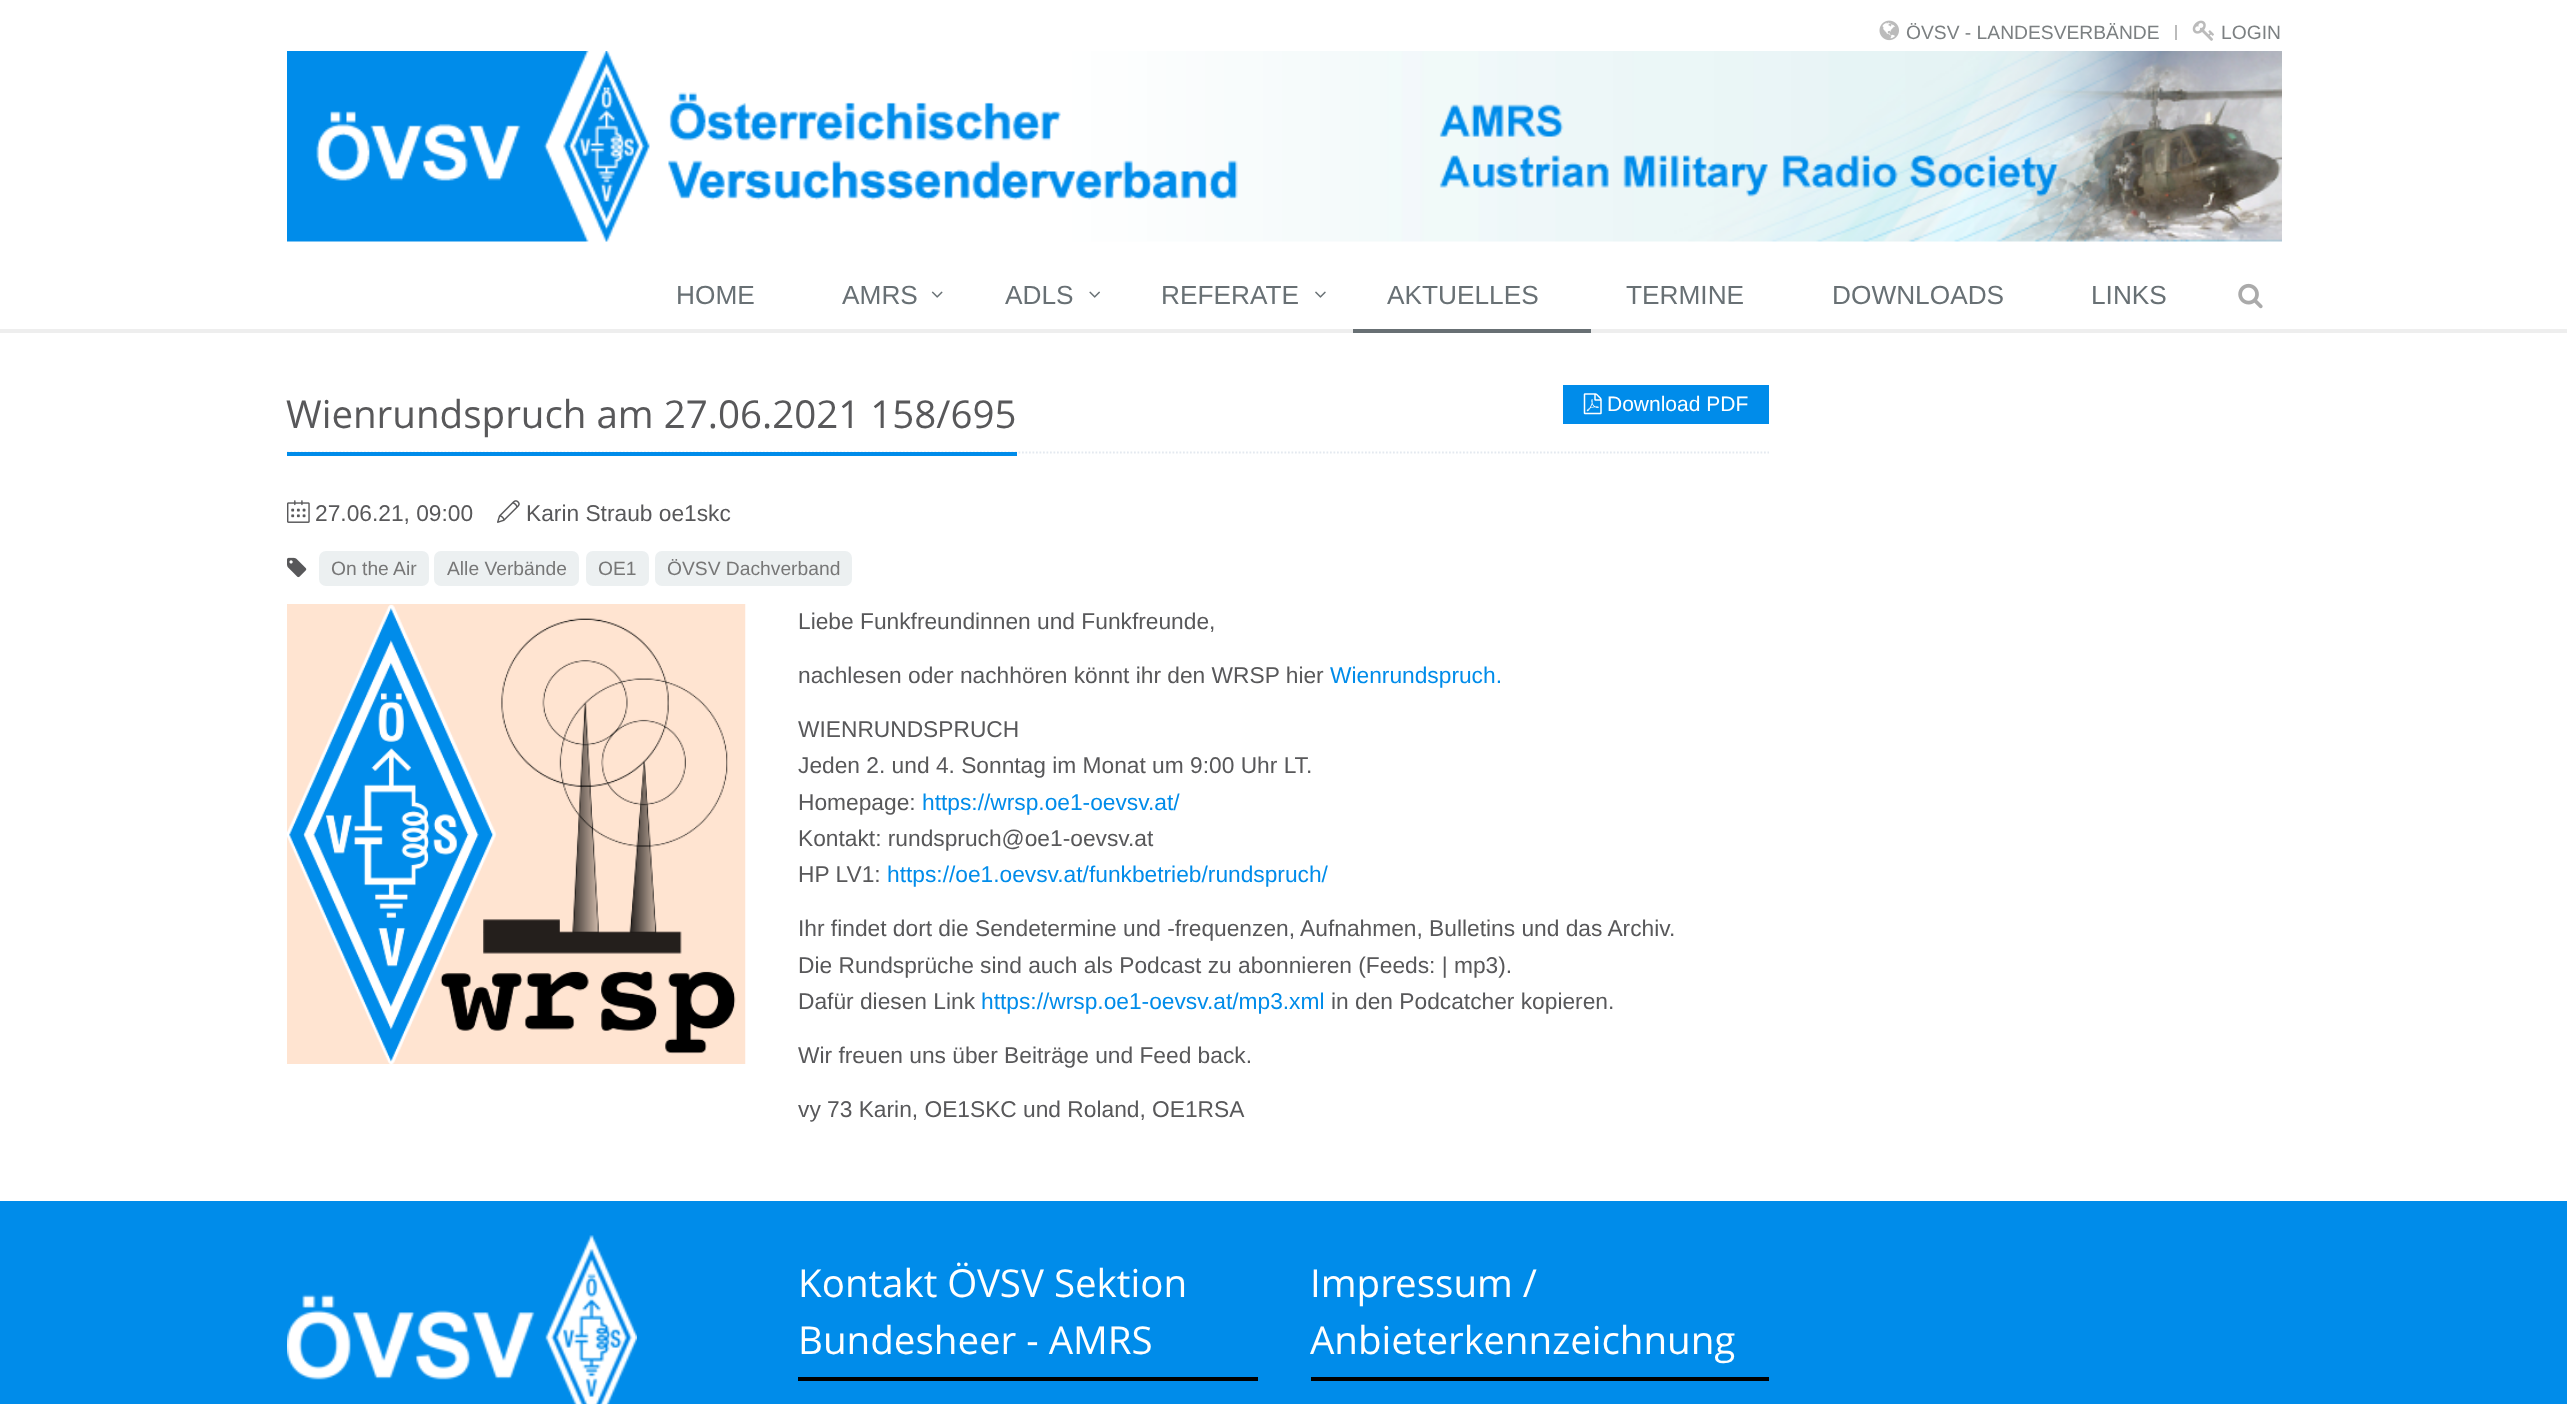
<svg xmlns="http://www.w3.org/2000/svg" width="2567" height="1404">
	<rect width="100%" height="100%" fill="#FFFFFF" />
	<image x="1879" y="20" width="20" height="21" href="assets/img1.png" />
	<text x="1906" y="39" font-family="Liberation Sans" font-size="19.25" fill="#7C8082">ÖVSV - LANDESVERBÄNDE</text>
	<rect x="2175" y="25" width="2" height="15" fill="#BBBBBB" />
	<image x="2192" y="20" width="22" height="21" href="assets/img2.png" />
	<text x="2221" y="39" font-family="Liberation Sans" font-size="19.25" fill="#7C8082">LOGIN</text>
	<image x="287" y="51" width="1995" height="191" href="assets/img3.png" />
	<rect x="0" y="329" width="2567" height="4" fill="#EEEEEE" />
	<g font-family="Liberation Sans" font-size="26.25" fill="#687074">
		<text x="676" y="304">HOME</text>
		<text x="842" y="304">AMRS</text>
	</g>
	<image x="931" y="291" width="12" height="7" href="assets/img4.png" />
	<text x="1005" y="304" font-family="Liberation Sans" font-size="26.25" fill="#687074">ADLS</text>
	<image x="1089" y="291" width="11" height="7" href="assets/img5.png" />
	<text x="1161" y="304" font-family="Liberation Sans" font-size="26.25" fill="#687074">REFERATE</text>
	<image x="1315" y="291" width="11" height="7" href="assets/img6.png" />
	<rect x="1353" y="329" width="238" height="4" fill="#687074" />
	<g font-family="Liberation Sans" font-size="26.25" fill="#687074">
		<text x="1387" y="304">AKTUELLES</text>
		<text x="1626" y="304">TERMINE</text>
		<text x="1832" y="304">DOWNLOADS</text>
		<text x="2091" y="304">LINKS</text>
	</g>
	<image x="2238" y="283" width="25" height="26" href="assets/img7.png" />
	<path d="M287 452.5H1769" fill="none" stroke="#E4E9F0" stroke-width="1.8" stroke-dasharray="1.75 1.75" />
	<rect x="287" y="452" width="730" height="4" fill="#008CEA" />
	<text x="286" y="428" font-family="Open Sans" font-size="38.5" fill="#58585A">Wienrundspruch am 27.06.2021 158/695</text>
	<rect x="1563" y="385" width="206" height="39" fill="#008CEA" />
	<image x="1583" y="393" width="19" height="22" href="assets/img8.png" />
	<text x="1607" y="411" font-family="Liberation Sans" font-size="21" fill="#FFFFFF">Download PDF</text>
	<image x="287" y="500" width="23" height="23" href="assets/img9.png" />
	<text x="315" y="521" font-family="Liberation Sans" font-size="22.75" fill="#58585A">27.06.21, 09:00</text>
	<image x="497" y="500" width="23" height="23" href="assets/img10.png" />
	<text x="526" y="521" font-family="Liberation Sans" font-size="22.75" fill="#58585A">Karin Straub oe1skc</text>
	<image x="287" y="557" width="20" height="21" href="assets/img11.png" />
	<rect x="319" y="551" width="110" height="35" rx="7" fill="#ECF0F1" />
	<text x="331" y="575" font-family="Liberation Sans" font-size="19.25" fill="#777777">On the Air</text>
	<rect x="434" y="551" width="145" height="35" rx="7" fill="#ECF0F1" />
	<text x="447" y="575" font-family="Liberation Sans" font-size="19.25" fill="#777777">Alle Verbände</text>
	<rect x="586" y="551" width="63" height="35" rx="7" fill="#ECF0F1" />
	<text x="598" y="575" font-family="Liberation Sans" font-size="19.25" fill="#777777">OE1</text>
	<rect x="655" y="551" width="197" height="35" rx="7" fill="#ECF0F1" />
	<text x="667" y="575" font-family="Liberation Sans" font-size="19.25" fill="#777777">ÖVSV Dachverband</text>
	<image x="287" y="604" width="459" height="460" href="assets/img12.png" />
	<g font-family="Liberation Sans" font-size="22.75" fill="#58585A">
		<text x="798" y="629">Liebe Funkfreundinnen und Funkfreunde,</text>
		<text x="798" y="683">nachlesen oder nachhören könnt ihr den WRSP hier</text>
	</g>
	<text x="1330" y="683" font-family="Liberation Sans" font-size="22.75" fill="#008CEA">Wienrundspruch.</text>
	<g font-family="Liberation Sans" font-size="22.75" fill="#58585A">
		<text x="798" y="737">WIENRUNDSPRUCH</text>
		<text x="798" y="773">Jeden 2. und 4. Sonntag im Monat um 9:00 Uhr LT.</text>
		<text x="798" y="810">Homepage:</text>
	</g>
	<text x="922" y="810" font-family="Liberation Sans" font-size="22.75" fill="#008CEA">https://wrsp.oe1-oevsv.at/</text>
	<g font-family="Liberation Sans" font-size="22.75" fill="#58585A">
		<text x="798" y="846">Kontakt: rundspruch@oe1-oevsv.at</text>
		<text x="798" y="882">HP LV1:</text>
	</g>
	<text x="887" y="882" font-family="Liberation Sans" font-size="22.75" fill="#008CEA">https://oe1.oevsv.at/funkbetrieb/rundspruch/</text>
	<g font-family="Liberation Sans" font-size="22.75" fill="#58585A">
		<text x="798" y="936">Ihr findet dort die Sendetermine und -frequenzen, Aufnahmen, Bulletins und das Archiv.</text>
		<text x="798" y="973">Die Rundsprüche sind auch als Podcast zu abonnieren (Feeds: | mp3).</text>
		<text x="798" y="1009">Dafür diesen Link</text>
	</g>
	<text x="981" y="1009" font-family="Liberation Sans" font-size="22.75" fill="#008CEA">https://wrsp.oe1-oevsv.at/mp3.xml</text>
	<g font-family="Liberation Sans" font-size="22.75" fill="#58585A">
		<text x="1331" y="1009">in den Podcatcher kopieren.</text>
		<text x="798" y="1063">Wir freuen uns über Beiträge und Feed back.</text>
		<text x="798" y="1117">vy 73 Karin, OE1SKC und Roland, OE1RSA</text>
	</g>
	<rect x="0" y="1201" width="2567" height="203" fill="#008CEA" />
	<image x="287" y="1235" width="350" height="169" href="assets/img13.png" />
	<rect x="798" y="1377" width="460" height="4" fill="#000000" />
	<g font-family="Open Sans" font-size="38.5" fill="#FFFFFF">
		<text x="798" y="1297">Kontakt ÖVSV Sektion</text>
		<text x="798" y="1354">Bundesheer - AMRS</text>
	</g>
	<rect x="1311" y="1377" width="458" height="4" fill="#000000" />
	<g font-family="Open Sans" font-size="38.5" fill="#FFFFFF">
		<text x="1310" y="1297">Impressum /</text>
		<text x="1310" y="1354">Anbieterkennzeichnung</text>
	</g>
</svg>
